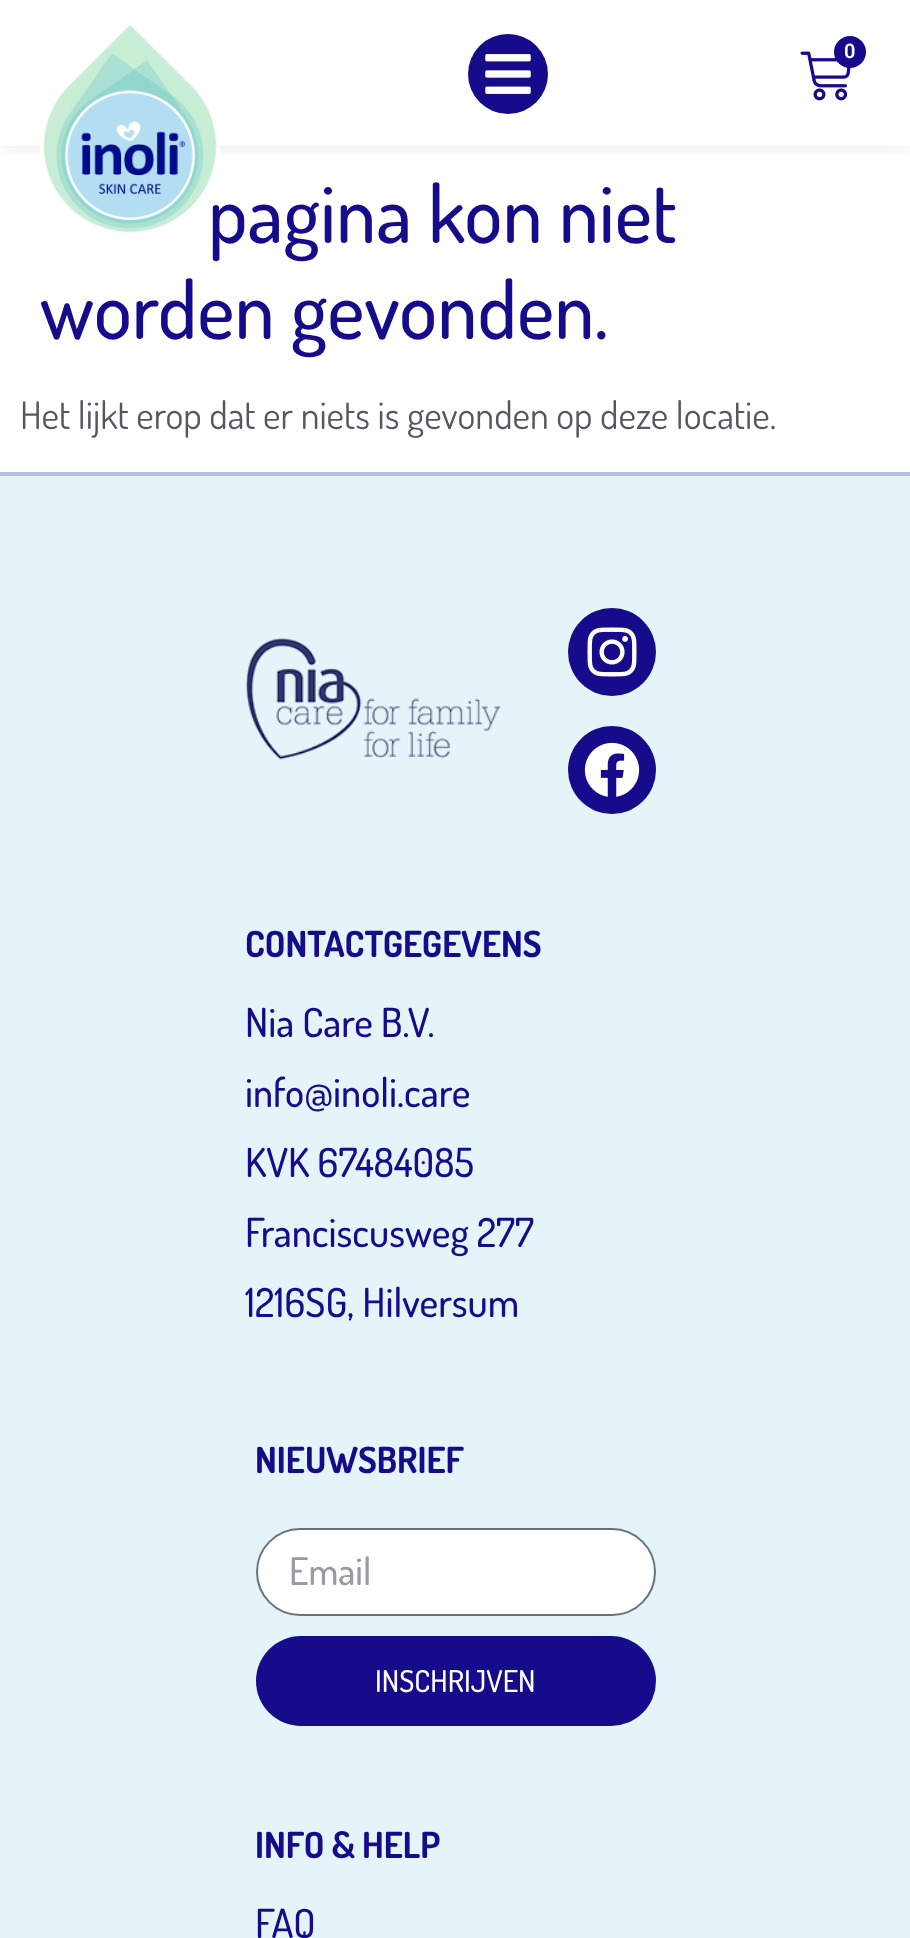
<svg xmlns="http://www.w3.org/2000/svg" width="910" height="1938">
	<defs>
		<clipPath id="clip1"><rect x="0" y="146" width="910" height="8" /></clipPath>
	</defs>
	<rect width="100%" height="100%" fill="#FFFFFF" />
	<g clip-path="url(#clip1)">
		<rect x="0" y="0" width="910" height="146" fill="#000000" fill-opacity="0.09" filter="blur(10px)" />
	</g>
	<text x="208" y="243" font-family="Dosis" font-size="80" font-weight="500" fill="#160B8B">pagina kon niet</text>
	<image x="40" y="25" width="180" height="211" href="assets/img1.png" />
	<circle cx="508" cy="74" r="40" fill="#160B8B" />
	<image x="485" y="54" width="46" height="40" href="assets/img2.png" />
	<image x="800" y="51" width="51" height="50" href="assets/img3.png" />
	<circle cx="850" cy="52" r="16" fill="#160B8B" />
	<text x="844" y="58" font-family="Roboto" font-size="20" font-weight="600" fill="#FFFFFF">0</text>
	<text x="40" y="339" font-family="Dosis" font-size="80" font-weight="500" fill="#160B8B">worden gevonden.</text>
	<text x="20" y="429" font-family="Dosis" font-size="38" fill="#54595F">Het lijkt erop dat er niets is gevonden op deze locatie.</text>
	<rect x="0" y="476" width="910" height="1462" fill="#E5F4F8" />
	<rect x="0" y="472" width="910" height="4" fill="#B7C1E0" />
	<image x="245" y="638" width="256" height="122" href="assets/img4.png" />
	<circle cx="612" cy="652" r="44" fill="#160B8B" />
	<image x="587" y="627" width="50" height="50" href="assets/img5.png" />
	<circle cx="612" cy="770" r="44" fill="#160B8B" />
	<image x="584" y="742" width="56" height="55" href="assets/img6.png" />
	<text x="245" y="957" font-family="Dosis" font-size="36" font-weight="700" fill="#160B8B">CONTACTGEGEVENS</text>
	<g font-family="Dosis" font-size="40" font-weight="500" fill="#160B8B">
		<text x="245" y="1037">Nia Care B.V.</text>
		<text x="245" y="1107">info@inoli.care</text>
		<text x="245" y="1177">KVK 67484085</text>
		<text x="245" y="1247">Franciscusweg 277</text>
		<text x="245" y="1317">1216SG, Hilversum</text>
	</g>
	<text x="255" y="1473" font-family="Dosis" font-size="36" font-weight="700" fill="#160B8B">NIEUWSBRIEF</text>
	<rect x="257" y="1529" width="398" height="86" rx="43" fill="#FFFFFF" stroke="#69727D" stroke-width="2" />
	<text x="289" y="1585" font-family="Dosis" font-size="38" font-weight="500" fill="#989B9F">Email</text>
	<rect x="256" y="1636" width="400" height="90" rx="45" fill="#160B8B" />
	<text x="375" y="1692" font-family="Dosis" font-size="30" font-weight="500" fill="#FFFFFF">INSCHRIJVEN</text>
	<text x="255" y="1858" font-family="Dosis" font-size="36" font-weight="700" fill="#160B8B">INFO &amp; HELP</text>
	<text x="255" y="1938" font-family="Dosis" font-size="40" font-weight="500" fill="#160B8B">FAQ</text>
</svg>
